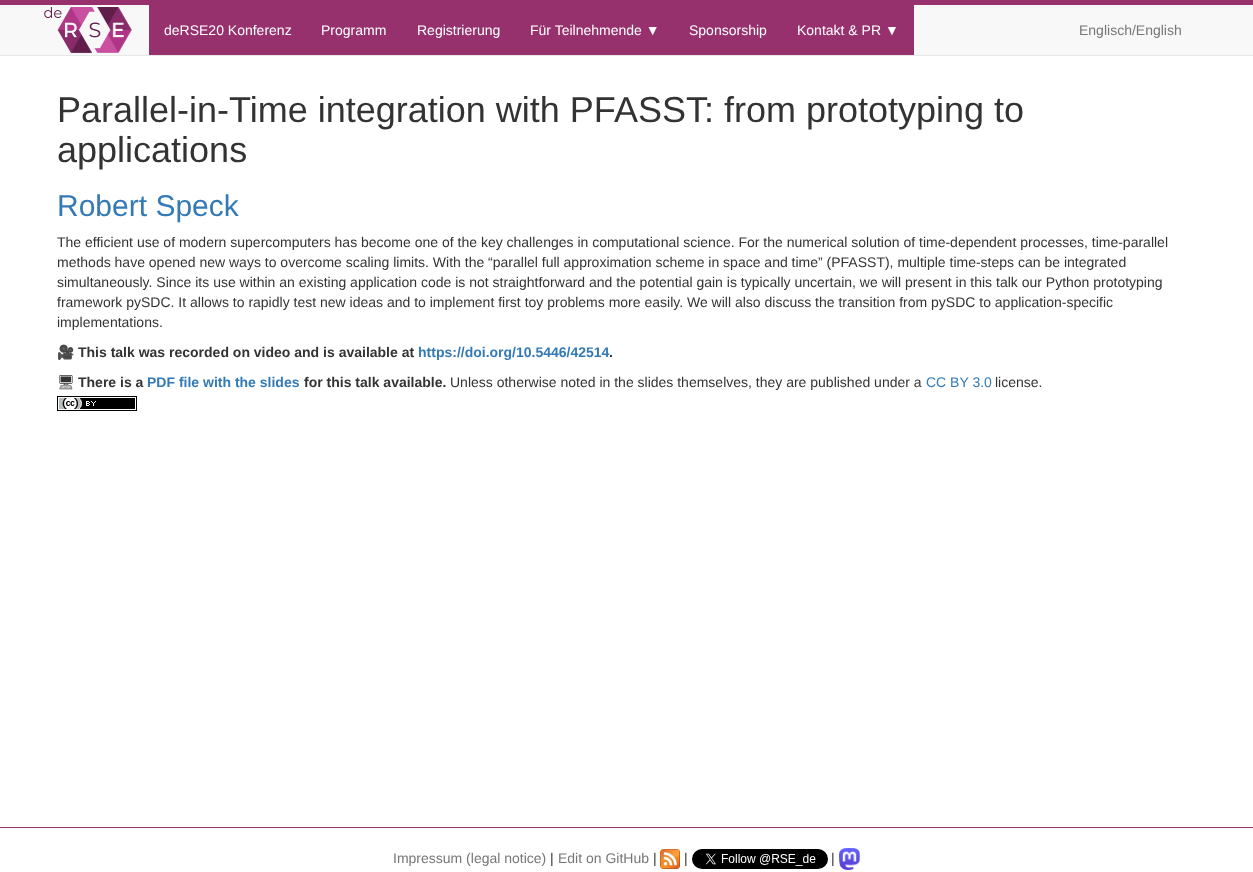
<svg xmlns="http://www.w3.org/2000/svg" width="1253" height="872">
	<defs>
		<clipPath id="clip1"><rect x="57" y="70" width="1140" height="417" /></clipPath>
	</defs>
	<rect width="100%" height="100%" fill="#FFFFFF" />
	<rect x="0" y="5" width="1253" height="50" fill="#F8F8F8" />
	<rect x="0" y="0" width="1253" height="5" fill="#97316E" />
	<rect x="0" y="55" width="1253" height="1" fill="#E7E7E7" />
	<image x="44" y="7" width="88" height="46" href="assets/img1.png" />
	<rect x="149" y="5" width="765" height="50" fill="#97316E" />
	<g font-family="Liberation Sans" font-size="14" fill="#FFFFFF">
		<text x="164" y="35">deRSE20 Konferenz</text>
		<text x="321" y="35">Programm</text>
		<text x="417" y="35">Registrierung</text>
		<text x="530" y="35">Für Teilnehmende ▼</text>
		<text x="689" y="35">Sponsorship</text>
		<text x="797" y="35">Kontakt &amp; PR ▼</text>
	</g>
	<text x="1079" y="35" font-family="Liberation Sans" font-size="14" fill="#777777">Englisch/English</text>
	<g font-family="Liberation Sans" font-size="36" fill="#333333">
		<text x="57" y="122">Parallel-in-Time integration with PFASST: from prototyping to</text>
		<text x="57" y="162">applications</text>
	</g>
	<text x="57" y="216" font-family="Liberation Sans" font-size="30" fill="#337AB7">Robert Speck</text>
	<g font-family="Liberation Sans" font-size="14" fill="#333333">
		<text x="57" y="247">The efficient use of modern supercomputers has become one of the key challenges in computational science. For the numerical solution of time-dependent processes, time-parallel</text>
		<text x="57" y="267">methods have opened new ways to overcome scaling limits. With the “parallel full approximation scheme in space and time” (PFASST), multiple time-steps can be integrated</text>
		<text x="57" y="287">simultaneously. Since its use within an existing application code is not straightforward and the potential gain is typically uncertain, we will present in this talk our Python prototyping</text>
		<text x="57" y="307">framework pySDC. It allows to rapidly test new ideas and to implement first toy problems more easily. We will also discuss the transition from pySDC to application-specific</text>
		<text x="57" y="327">implementations.</text>
	</g>
	<g clip-path="url(#clip1)">
		<text x="57" y="357" font-family="Noto Color Emoji" font-size="14" fill="#333333">🎥</text>
	</g>
	<text x="78" y="357" font-family="Liberation Sans" font-size="14" font-weight="700" fill="#333333">This talk was recorded on video and is available at</text>
	<text x="418" y="357" font-family="Liberation Sans" font-size="14" font-weight="700" fill="#337AB7">https://doi.org/10.5446/42514</text>
	<text x="609" y="357" font-family="Liberation Sans" font-size="14" font-weight="700" fill="#333333">.</text>
	<text x="57" y="387" font-family="Noto Emoji" font-size="14" fill="#333333">🖥</text>
	<text x="78" y="387" font-family="Liberation Sans" font-size="14" font-weight="700" fill="#333333">There is a</text>
	<text x="147" y="387" font-family="Liberation Sans" font-size="14" font-weight="700" fill="#337AB7">PDF file with the slides</text>
	<text x="304" y="387" font-family="Liberation Sans" font-size="14" font-weight="700" fill="#333333">for this talk available.</text>
	<text x="450" y="387" font-family="Liberation Sans" font-size="14" fill="#333333">Unless otherwise noted in the slides themselves, they are published under a</text>
	<text x="926" y="387" font-family="Liberation Sans" font-size="14" fill="#337AB7">CC BY 3.0</text>
	<text x="995" y="387" font-family="Liberation Sans" font-size="14" fill="#333333">license.</text>
	<image x="57" y="396" width="80" height="15" href="assets/img2.png" />
	<rect x="0" y="827" width="1253" height="1" fill="#97316E" />
	<text x="393" y="863" font-family="Liberation Sans" font-size="14" fill="#777777">Impressum (legal notice)</text>
	<text x="550" y="863" font-family="Liberation Sans" font-size="14" fill="#333333">|</text>
	<text x="558" y="863" font-family="Liberation Sans" font-size="14" fill="#777777">Edit on GitHub</text>
	<text x="653" y="863" font-family="Liberation Sans" font-size="14" fill="#333333">|</text>
	<image x="660" y="849" width="20" height="20" href="assets/img3.png" />
	<text x="684" y="863" font-family="Liberation Sans" font-size="14" fill="#333333">|</text>
	<image x="692" y="849" width="136" height="20" href="assets/img4.png" />
	<text x="831" y="863" font-family="Liberation Sans" font-size="14" fill="#333333">|</text>
	<image x="839" y="848" width="21" height="22" href="assets/img5.png" />
</svg>
